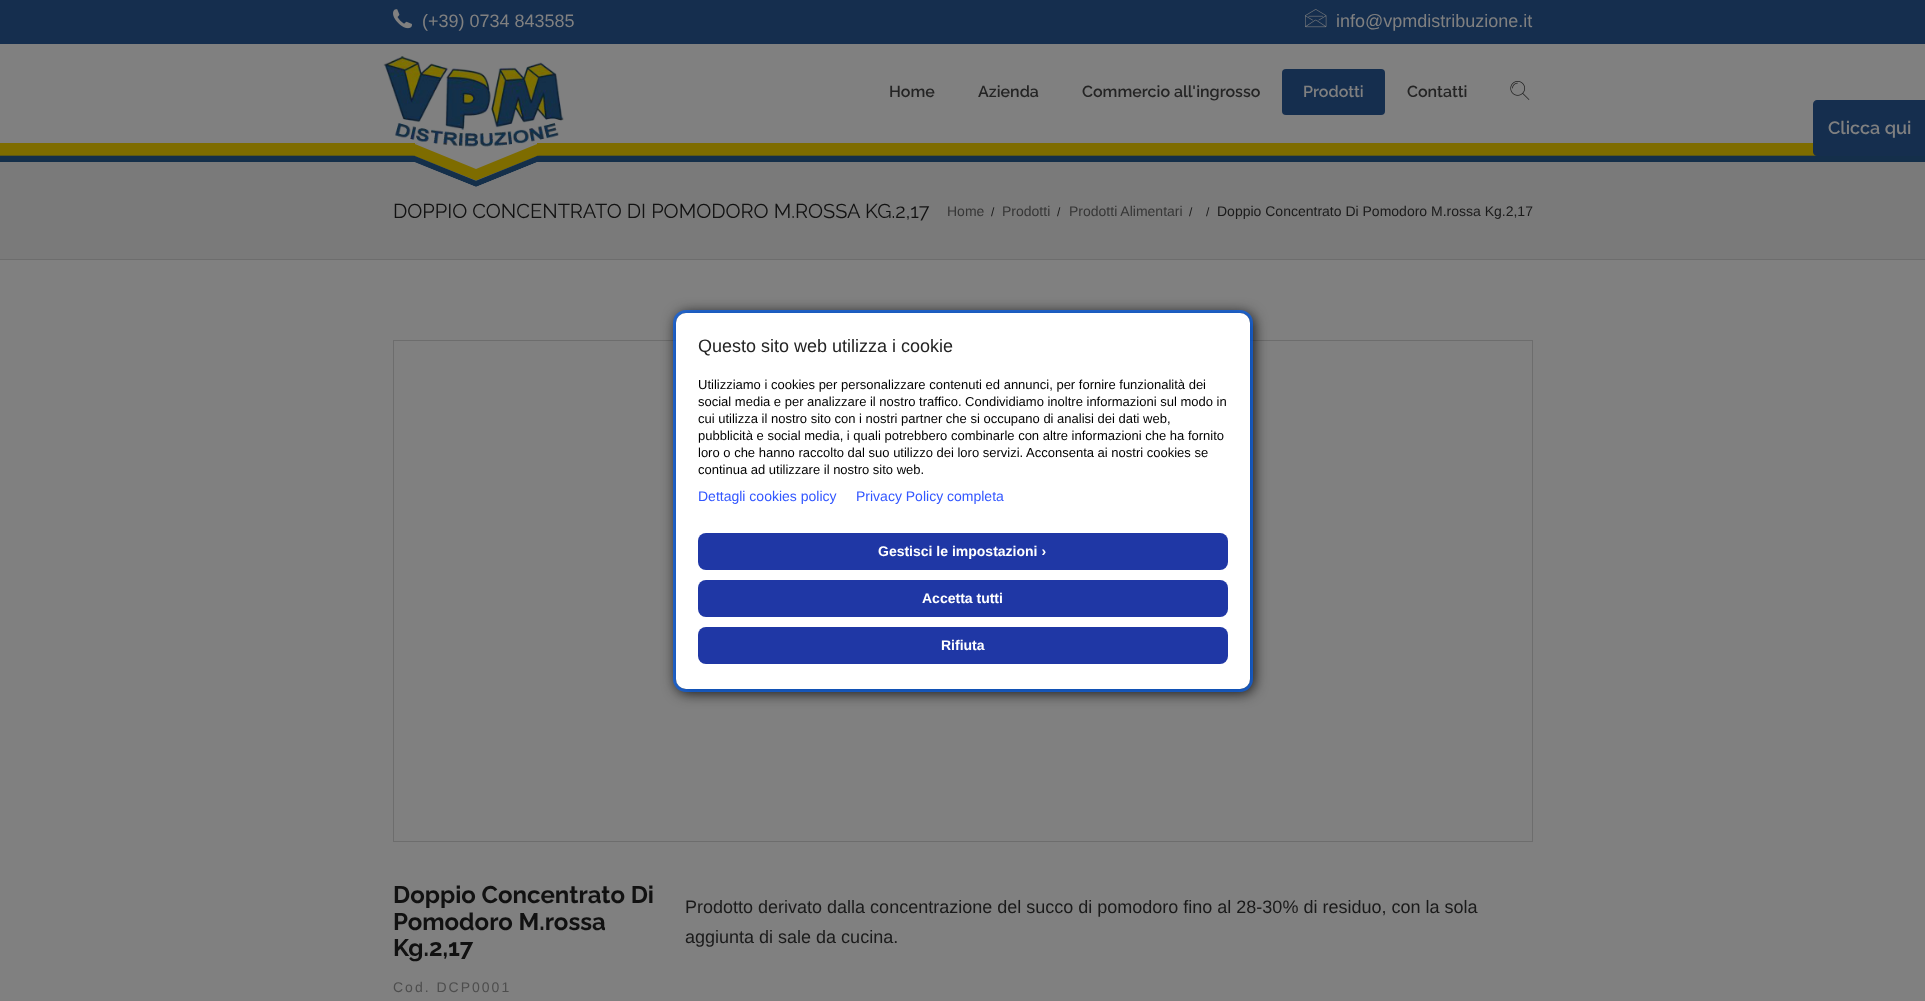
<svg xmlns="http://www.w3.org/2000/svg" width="1925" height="1001">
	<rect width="100%" height="100%" fill="#808080" />
	<rect x="0" y="0" width="1925" height="44" fill="#152E4E" />
	<image x="393" y="9" width="19" height="20" href="assets/img1.png" />
	<text x="422" y="27" font-family="Liberation Sans" font-size="18" fill="#808080">(+39) 0734 843585</text>
	<image x="1305" y="9" width="22" height="19" href="assets/img2.png" />
	<text x="1336" y="27" font-family="Liberation Sans" font-size="18" fill="#808080">info@vpmdistribuzione.it</text>
	<image x="0" y="143" width="1925" height="19" href="assets/img3.png" />
	<rect x="0" y="162" width="1925" height="97" fill="#7A7A7A" />
	<image x="383" y="56" width="181" height="131" href="assets/img4.png" />
	<g font-family="Raleway" font-size="16" font-weight="600" fill="#242424">
		<text x="889" y="97">Home</text>
		<text x="978" y="97">Azienda</text>
		<text x="1082" y="97">Commercio all'ingrosso</text>
	</g>
	<rect x="1282" y="69" width="103" height="46" rx="4" fill="#152E4E" />
	<text x="1303" y="97" font-family="Raleway" font-size="16" font-weight="600" fill="#808080">Prodotti</text>
	<text x="1407" y="97" font-family="Raleway" font-size="16" font-weight="600" fill="#242424">Contatti</text>
	<image x="1510" y="81" width="20" height="19" href="assets/img5.png" />
	<rect x="0" y="259" width="1925" height="1" fill="#6D6D6D" />
	<text x="393" y="218" font-family="Raleway" font-size="20" fill="#111111">DOPPIO CONCENTRATO DI POMODORO M.ROSSA KG.2,17</text>
	<text x="947" y="216" font-family="Liberation Sans" font-size="14" fill="#363636">Home</text>
	<text x="991" y="216" font-family="Liberation Sans" font-size="12" fill="#1A1A1A">/</text>
	<text x="1002" y="216" font-family="Liberation Sans" font-size="14" fill="#363636">Prodotti</text>
	<text x="1057" y="216" font-family="Liberation Sans" font-size="12" fill="#1A1A1A">/</text>
	<text x="1069" y="216" font-family="Liberation Sans" font-size="14" fill="#363636">Prodotti Alimentari</text>
	<g font-family="Liberation Sans" font-size="12" fill="#1A1A1A">
		<text x="1189" y="216">/</text>
		<text x="1206" y="216">/</text>
	</g>
	<text x="1217" y="216" font-family="Liberation Sans" font-size="14" fill="#1A1A1A">Doppio Concentrato Di Pomodoro M.rossa Kg.2,17</text>
	<rect x="393.5" y="340.5" width="1139" height="501" fill="none" stroke="#6D6D6D" />
	<g font-family="Raleway" font-size="24" font-weight="700" fill="#111111">
		<text x="393" y="903">Doppio Concentrato Di</text>
		<text x="393" y="930">Pomodoro M.rossa</text>
		<text x="393" y="956">Kg.2,17</text>
	</g>
	<text x="393" y="992" font-family="Liberation Sans" font-size="14" letter-spacing="2" fill="#4D4D4D">Cod. DCP0001</text>
	<g font-family="Liberation Sans" font-size="18" fill="#1A1A1A">
		<text x="685" y="913">Prodotto derivato dalla concentrazione del succo di pomodoro fino al 28-30% di residuo, con la sola</text>
		<text x="685" y="943">aggiunta di sale da cucina.</text>
	</g>
	<path d="M1817 100H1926V156H1817C1815 156 1813 154 1813 152V104C1813 102 1815 100 1817 100Z" fill="#152E4E" />
	<text x="1828" y="134" font-family="Raleway" font-size="18" font-weight="600" fill="#808080">Clicca qui</text>
	<rect x="676" y="313" width="578" height="380" rx="12" fill="#121213" filter="blur(7px)" />
	<rect x="674.5" y="311.5" width="577" height="379" rx="11.5" fill="none" stroke="#0064FF" stroke-opacity="0.64" stroke-width="3" />
	<rect x="676" y="313" width="574" height="376" rx="10" fill="#FFFFFF" />
	<text x="698" y="352" font-family="Liberation Sans" font-size="18" fill="#242424">Questo sito web utilizza i cookie</text>
	<g font-family="Liberation Sans" font-size="13" fill="#000000">
		<text x="698" y="389">Utilizziamo i cookies per personalizzare contenuti ed annunci, per fornire funzionalità dei</text>
		<text x="698" y="406">social media e per analizzare il nostro traffico. Condividiamo inoltre informazioni sul modo in</text>
		<text x="698" y="423">cui utilizza il nostro sito con i nostri partner che si occupano di analisi dei dati web,</text>
		<text x="698" y="440">pubblicità e social media, i quali potrebbero combinarle con altre informazioni che ha fornito</text>
		<text x="698" y="457">loro o che hanno raccolto dal suo utilizzo dei loro servizi. Acconsenta ai nostri cookies se</text>
		<text x="698" y="474">continua ad utilizzare il nostro sito web.</text>
	</g>
	<g font-family="Liberation Sans" font-size="14" fill="#3256FF">
		<text x="698" y="501">Dettagli cookies policy</text>
		<text x="856" y="501">Privacy Policy completa</text>
	</g>
	<rect x="698" y="533" width="530" height="37" rx="8" fill="#1F37A5" />
	<text x="878" y="556" font-family="Liberation Sans" font-size="14" font-weight="700" fill="#FFFFFF">Gestisci le impostazioni ›</text>
	<rect x="698" y="580" width="530" height="37" rx="8" fill="#1F37A5" />
	<text x="922" y="603" font-family="Liberation Sans" font-size="14" font-weight="700" fill="#FFFFFF">Accetta tutti</text>
	<rect x="698" y="627" width="530" height="37" rx="8" fill="#1F37A5" />
	<text x="941" y="650" font-family="Liberation Sans" font-size="14" font-weight="700" fill="#FFFFFF">Rifiuta</text>
</svg>
